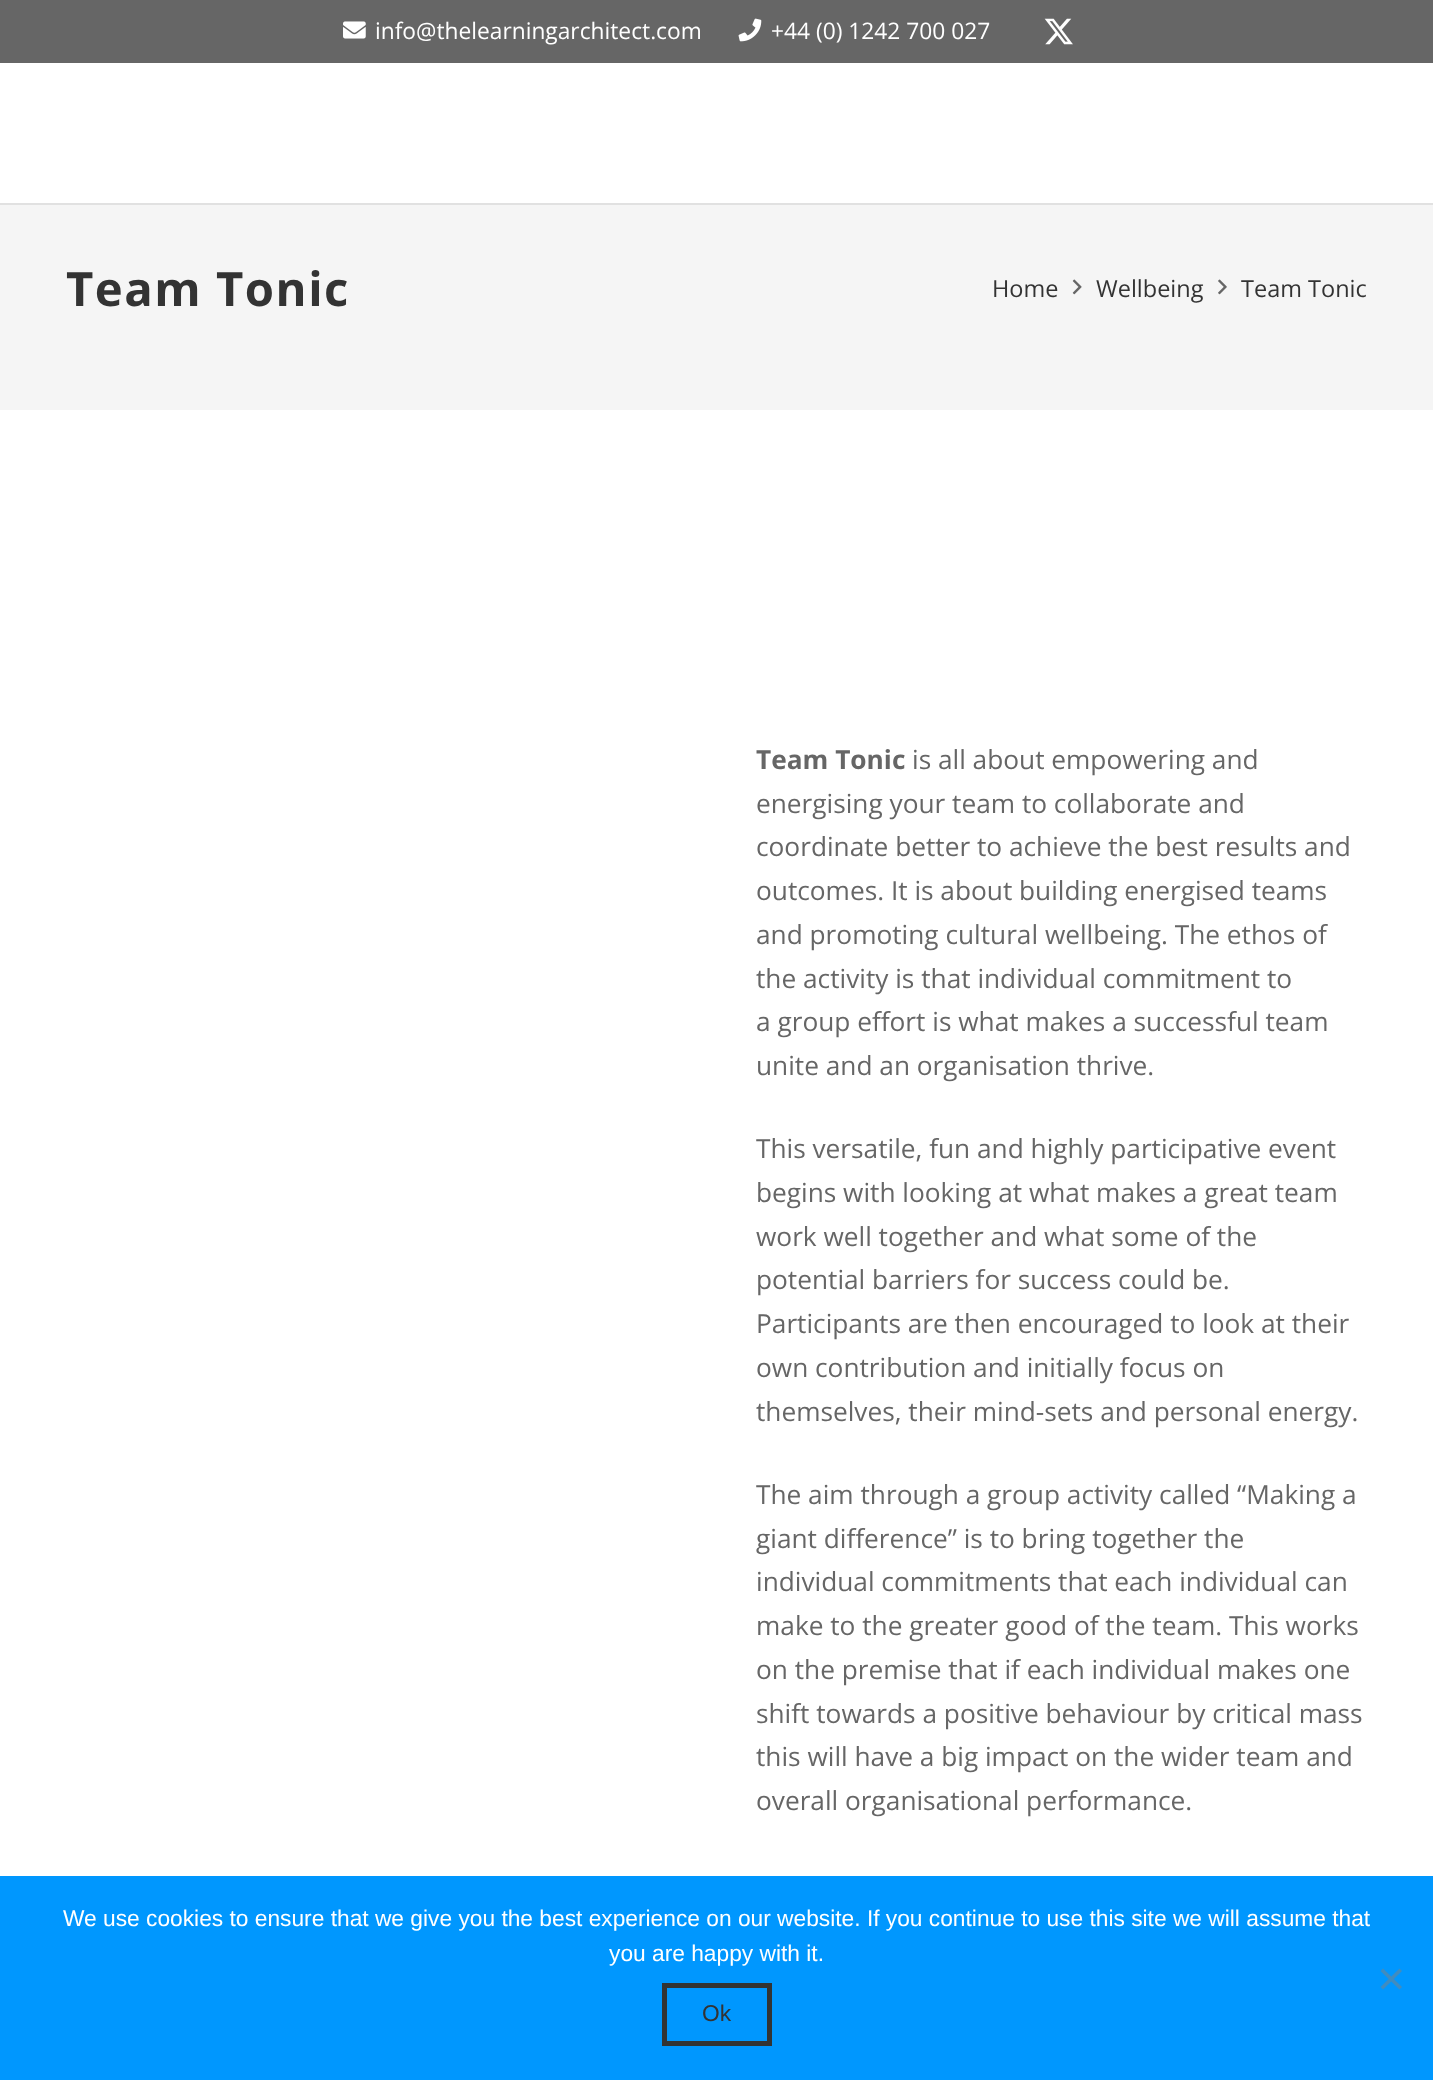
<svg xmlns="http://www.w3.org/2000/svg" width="1433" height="2080">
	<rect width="100%" height="100%" fill="#FFFFFF" />
	<rect x="0" y="0" width="1433" height="63" fill="#666666" />
	<image x="343" y="21" width="23" height="18" href="assets/img1.png" />
	<text x="375" y="39" font-family="Open Sans" font-size="22.75" fill="#FFFFFF">info@thelearningarchitect.com</text>
	<image x="738" y="18" width="24" height="24" href="assets/img2.png" />
	<text x="771" y="39" font-family="Open Sans" font-size="22.75" fill="#FFFFFF">+44 (0) 1242 700 027</text>
	<image x="1044" y="18" width="29" height="27" href="assets/img3.png" />
	<rect x="0" y="203" width="1433" height="2" fill="#E1E1E1" />
	<rect x="0" y="205" width="1433" height="205" fill="#F5F5F5" />
	<text x="66" y="306" font-family="Open Sans" font-size="47.25" font-weight="700" letter-spacing="1.5" fill="#333333">Team Tonic</text>
	<text x="992" y="297" font-family="Open Sans" font-size="23.5" fill="#333333">Home</text>
	<image x="1072" y="279" width="10" height="16" href="assets/img4.png" />
	<text x="1096" y="297" font-family="Open Sans" font-size="23.5" fill="#333333">Wellbeing</text>
	<image x="1218" y="279" width="9" height="16" href="assets/img5.png" />
	<text x="1241" y="297" font-family="Open Sans" font-size="23.5" fill="#333333">Team Tonic</text>
	<text x="756" y="769" font-family="Open Sans" font-size="26.25" font-weight="700" fill="#666666">Team Tonic</text>
	<g font-family="Open Sans" font-size="26.25" fill="#666666">
		<text x="912" y="769">is all about empowering and</text>
		<text x="756" y="813">energising your team to collaborate and</text>
		<text x="756" y="856">coordinate better to achieve the best results and</text>
		<text x="756" y="900">outcomes. It is about building energised teams</text>
		<text x="756" y="944">and promoting cultural wellbeing. The ethos of</text>
		<text x="756" y="988">the activity is that individual commitment to</text>
		<text x="756" y="1031">a group effort is what makes a successful team</text>
		<text x="756" y="1075">unite and an organisation thrive.</text>
		<text x="756" y="1158">This versatile, fun and highly participative event</text>
		<text x="756" y="1202">begins with looking at what makes a great team</text>
		<text x="756" y="1246">work well together and what some of the</text>
		<text x="756" y="1289">potential barriers for success could be.</text>
		<text x="756" y="1333">Participants are then encouraged to look at their</text>
		<text x="756" y="1377">own contribution and initially focus on</text>
		<text x="756" y="1421">themselves, their mind-sets and personal energy.</text>
		<text x="756" y="1504">The aim through a group activity called “Making a</text>
		<text x="756" y="1548">giant difference” is to bring together the</text>
		<text x="756" y="1591">individual commitments that each individual can</text>
		<text x="756" y="1635">make to the greater good of the team. This works</text>
		<text x="756" y="1679">on the premise that if each individual makes one</text>
		<text x="756" y="1723">shift towards a positive behaviour by critical mass</text>
		<text x="756" y="1766">this will have a big impact on the wider team and</text>
		<text x="756" y="1810">overall organisational performance.</text>
	</g>
	<rect x="0" y="1876" width="1433" height="204" fill="#0097FE" />
	<g font-family="Liberation Sans" font-size="22.75" fill="#FFFFFF">
		<text x="63" y="1926">We use cookies to ensure that we give you the best experience on our website. If you continue to use this site we will assume that</text>
		<text x="609" y="1961">you are happy with it.</text>
	</g>
	<path d="M1399.5 1968.5L1402 1971L1383 1989.5L1380.5 1987Z" fill="#408CBF" />
	<path d="M1380.5 1971L1383 1968.5L1402 1987L1399.5 1989.5Z" fill="#408CBF" />
	<rect x="664.5" y="1985.5" width="105" height="58" fill="none" stroke="#333333" stroke-width="5" />
	<text x="702" y="2021" font-family="Liberation Sans" font-size="22.75" fill="#333333">Ok</text>
</svg>
